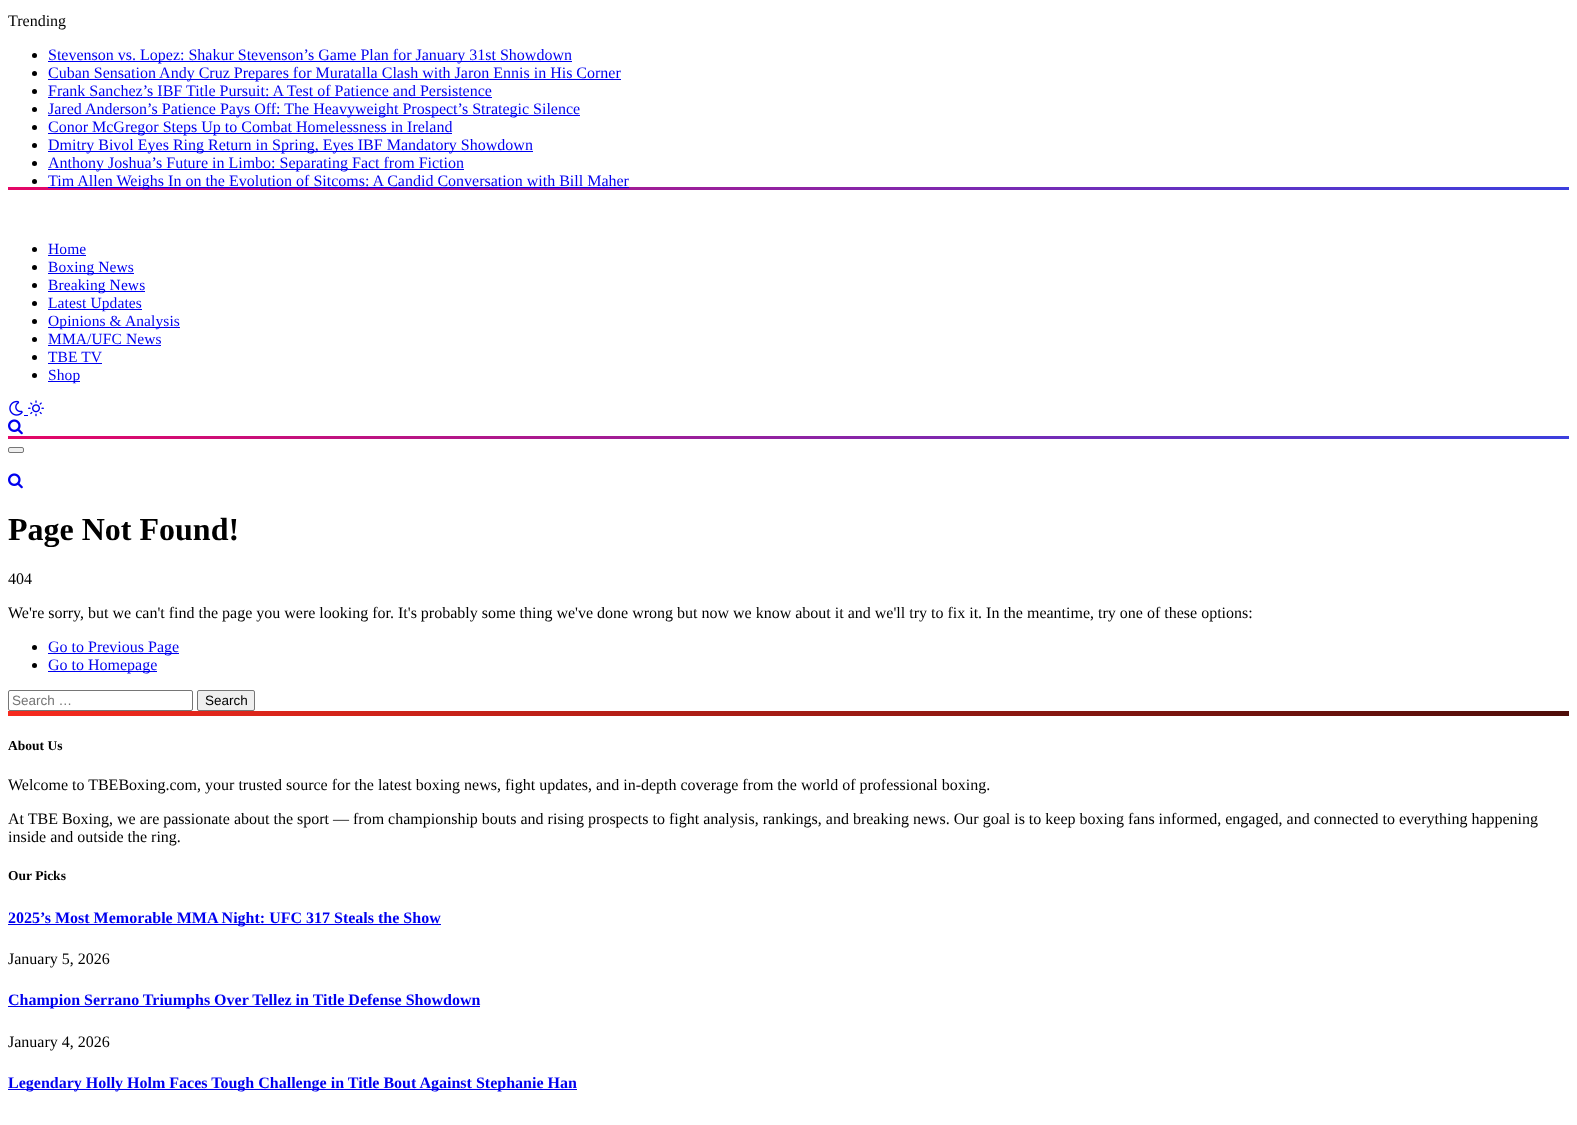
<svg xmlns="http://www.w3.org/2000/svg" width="1577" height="1125">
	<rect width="100%" height="100%" fill="#FFFFFF" />
	<image x="8" y="187" width="1561" height="3" href="assets/img1.png" />
	<text x="8" y="26" font-family="Liberation Serif" font-size="16" fill="#000000">Trending</text>
	<circle cx="34.5" cy="55.5" r="2.5" fill="#000000" />
	<rect x="48" y="61" width="524" height="1" fill="#0000EE" />
	<text x="48" y="60" font-family="Liberation Serif" font-size="16" fill="#0000EE">Stevenson vs. Lopez: Shakur Stevenson’s Game Plan for January 31st Showdown</text>
	<circle cx="34.5" cy="73.5" r="2.5" fill="#000000" />
	<rect x="48" y="79" width="573" height="1" fill="#0000EE" />
	<text x="48" y="78" font-family="Liberation Serif" font-size="16" fill="#0000EE">Cuban Sensation Andy Cruz Prepares for Muratalla Clash with Jaron Ennis in His Corner</text>
	<circle cx="34.5" cy="91.5" r="2.5" fill="#000000" />
	<text x="48" y="96" font-family="Liberation Serif" font-size="16" fill="#0000EE">Frank Sanchez’s IBF Title Pursuit: A Test of Patience and Persistence</text>
	<rect x="48" y="97" width="444" height="1" fill="#0000EE" />
	<circle cx="34.5" cy="109.5" r="2.5" fill="#000000" />
	<rect x="48" y="115" width="532" height="1" fill="#0000EE" />
	<text x="48" y="114" font-family="Liberation Serif" font-size="16" fill="#0000EE">Jared Anderson’s Patience Pays Off: The Heavyweight Prospect’s Strategic Silence</text>
	<circle cx="34.5" cy="127.5" r="2.5" fill="#000000" />
	<rect x="48" y="133" width="404" height="1" fill="#0000EE" />
	<text x="48" y="132" font-family="Liberation Serif" font-size="16" fill="#0000EE">Conor McGregor Steps Up to Combat Homelessness in Ireland</text>
	<circle cx="34.5" cy="145.5" r="2.5" fill="#000000" />
	<rect x="48" y="151" width="485" height="1" fill="#0000EE" />
	<text x="48" y="150" font-family="Liberation Serif" font-size="16" fill="#0000EE">Dmitry Bivol Eyes Ring Return in Spring, Eyes IBF Mandatory Showdown</text>
	<circle cx="34.5" cy="163.5" r="2.5" fill="#000000" />
	<rect x="48" y="169" width="416" height="1" fill="#0000EE" />
	<text x="48" y="168" font-family="Liberation Serif" font-size="16" fill="#0000EE">Anthony Joshua’s Future in Limbo: Separating Fact from Fiction</text>
	<circle cx="34.5" cy="181.5" r="2.5" fill="#000000" />
	<rect x="48" y="187" width="581" height="1" fill="#0000EE" />
	<text x="48" y="186" font-family="Liberation Serif" font-size="16" fill="#0000EE">Tim Allen Weighs In on the Evolution of Sitcoms: A Candid Conversation with Bill Maher</text>
	<circle cx="34.5" cy="249.5" r="2.5" fill="#000000" />
	<text x="48" y="254" font-family="Liberation Serif" font-size="15.5" letter-spacing="0.1" fill="#0000EE">Home</text>
	<rect x="48" y="255" width="38" height="1" fill="#0000EE" />
	<circle cx="34.5" cy="267.5" r="2.5" fill="#000000" />
	<rect x="48" y="273" width="86" height="1" fill="#0000EE" />
	<text x="48" y="272" font-family="Liberation Serif" font-size="15.5" letter-spacing="0.1" fill="#0000EE">Boxing News</text>
	<circle cx="34.5" cy="285.5" r="2.5" fill="#000000" />
	<rect x="48" y="291" width="97" height="1" fill="#0000EE" />
	<text x="48" y="290" font-family="Liberation Serif" font-size="15.5" letter-spacing="0.1" fill="#0000EE">Breaking News</text>
	<circle cx="34.5" cy="303.5" r="2.5" fill="#000000" />
	<rect x="48" y="309" width="94" height="1" fill="#0000EE" />
	<text x="48" y="308" font-family="Liberation Serif" font-size="15.5" letter-spacing="0.1" fill="#0000EE">Latest Updates</text>
	<circle cx="34.5" cy="321.5" r="2.5" fill="#000000" />
	<rect x="48" y="327" width="132" height="1" fill="#0000EE" />
	<text x="48" y="326" font-family="Liberation Serif" font-size="15.5" letter-spacing="0.1" fill="#0000EE">Opinions &amp; Analysis</text>
	<circle cx="34.5" cy="339.5" r="2.5" fill="#000000" />
	<text x="48" y="344" font-family="Liberation Serif" font-size="15.5" letter-spacing="0.1" fill="#0000EE">MMA/UFC News</text>
	<rect x="48" y="345" width="113" height="1" fill="#0000EE" />
	<circle cx="34.5" cy="357.5" r="2.5" fill="#000000" />
	<text x="48" y="362" font-family="Liberation Serif" font-size="15.5" letter-spacing="0.1" fill="#0000EE">TBE TV</text>
	<rect x="48" y="363" width="54" height="1" fill="#0000EE" />
	<circle cx="34.5" cy="375.5" r="2.5" fill="#000000" />
	<rect x="48" y="381" width="32" height="1" fill="#0000EE" />
	<text x="48" y="380" font-family="Liberation Serif" font-size="15.5" letter-spacing="0.1" fill="#0000EE">Shop</text>
	<image x="9" y="400" width="14" height="16" href="assets/img2.png" />
	<rect x="24" y="415" width="4" height="1" fill="#0000EE" />
	<image x="28" y="400" width="16" height="17" href="assets/img3.png" />
	<image x="8" y="419" width="15" height="16" href="assets/img4.png" />
	<image x="8" y="436" width="1561" height="3" href="assets/img5.png" />
	<rect x="8.5" y="447.5" width="15" height="5" rx="1.5" fill="#EFEFEF" stroke="#767676" />
	<image x="8" y="473" width="15" height="16" href="assets/img4.png" />
	<text x="8" y="540" font-family="Liberation Serif" font-size="32" font-weight="700" fill="#000000">Page Not Found!</text>
	<g font-family="Liberation Serif" font-size="16" fill="#000000">
		<text x="8" y="584">404</text>
		<text x="8" y="618">We're sorry, but we can't find the page you were looking for. It's probably some thing we've done wrong but now we know about it and we'll try to fix it. In the meantime, try one of these options:</text>
	</g>
	<circle cx="34.5" cy="647.5" r="2.5" fill="#000000" />
	<rect x="48" y="653" width="131" height="1" fill="#0000EE" />
	<text x="48" y="652" font-family="Liberation Serif" font-size="16" fill="#0000EE">Go to Previous Page</text>
	<circle cx="34.5" cy="665.5" r="2.5" fill="#000000" />
	<rect x="48" y="671" width="109" height="1" fill="#0000EE" />
	<text x="48" y="670" font-family="Liberation Serif" font-size="16" fill="#0000EE">Go to Homepage</text>
	<rect x="8.5" y="690.5" width="184" height="20" rx="1.5" fill="none" stroke="#767676" />
	<text x="12" y="705" font-family="Liberation Sans" font-size="13.5" fill="#757575">Search …</text>
	<rect x="197.5" y="690.5" width="57" height="20" rx="1.5" fill="#EFEFEF" stroke="#767676" />
	<text x="205" y="705" font-family="Liberation Sans" font-size="13.5" fill="#000000">Search</text>
	<image x="8" y="711" width="1561" height="5" href="assets/img6.png" />
	<text x="8" y="750" font-family="Liberation Serif" font-size="13.5" font-weight="700" fill="#000000">About Us</text>
	<g font-family="Liberation Serif" font-size="16" fill="#000000">
		<text x="8" y="790">Welcome to TBEBoxing.com, your trusted source for the latest boxing news, fight updates, and in-depth coverage from the world of professional boxing.</text>
		<text x="8" y="824">At TBE Boxing, we are passionate about the sport — from championship bouts and rising prospects to fight analysis, rankings, and breaking news. Our goal is to keep boxing fans informed, engaged, and connected to everything happening</text>
		<text x="8" y="842">inside and outside the ring.</text>
	</g>
	<text x="8" y="880" font-family="Liberation Serif" font-size="13.5" font-weight="700" fill="#000000">Our Picks</text>
	<rect x="8" y="924" width="433" height="1" fill="#0000EE" />
	<text x="8" y="923" font-family="Liberation Serif" font-size="16" font-weight="700" fill="#0000EE">2025’s Most Memorable MMA Night: UFC 317 Steals the Show</text>
	<text x="8" y="964" font-family="Liberation Serif" font-size="16" fill="#000000">January 5, 2026</text>
	<rect x="8" y="1006" width="472" height="1" fill="#0000EE" />
	<text x="8" y="1005" font-family="Liberation Serif" font-size="16" font-weight="700" fill="#0000EE">Champion Serrano Triumphs Over Tellez in Title Defense Showdown</text>
	<text x="8" y="1047" font-family="Liberation Serif" font-size="16" fill="#000000">January 4, 2026</text>
	<rect x="8" y="1089" width="569" height="1" fill="#0000EE" />
	<text x="8" y="1088" font-family="Liberation Serif" font-size="16" font-weight="700" fill="#0000EE">Legendary Holly Holm Faces Tough Challenge in Title Bout Against Stephanie Han</text>
</svg>
